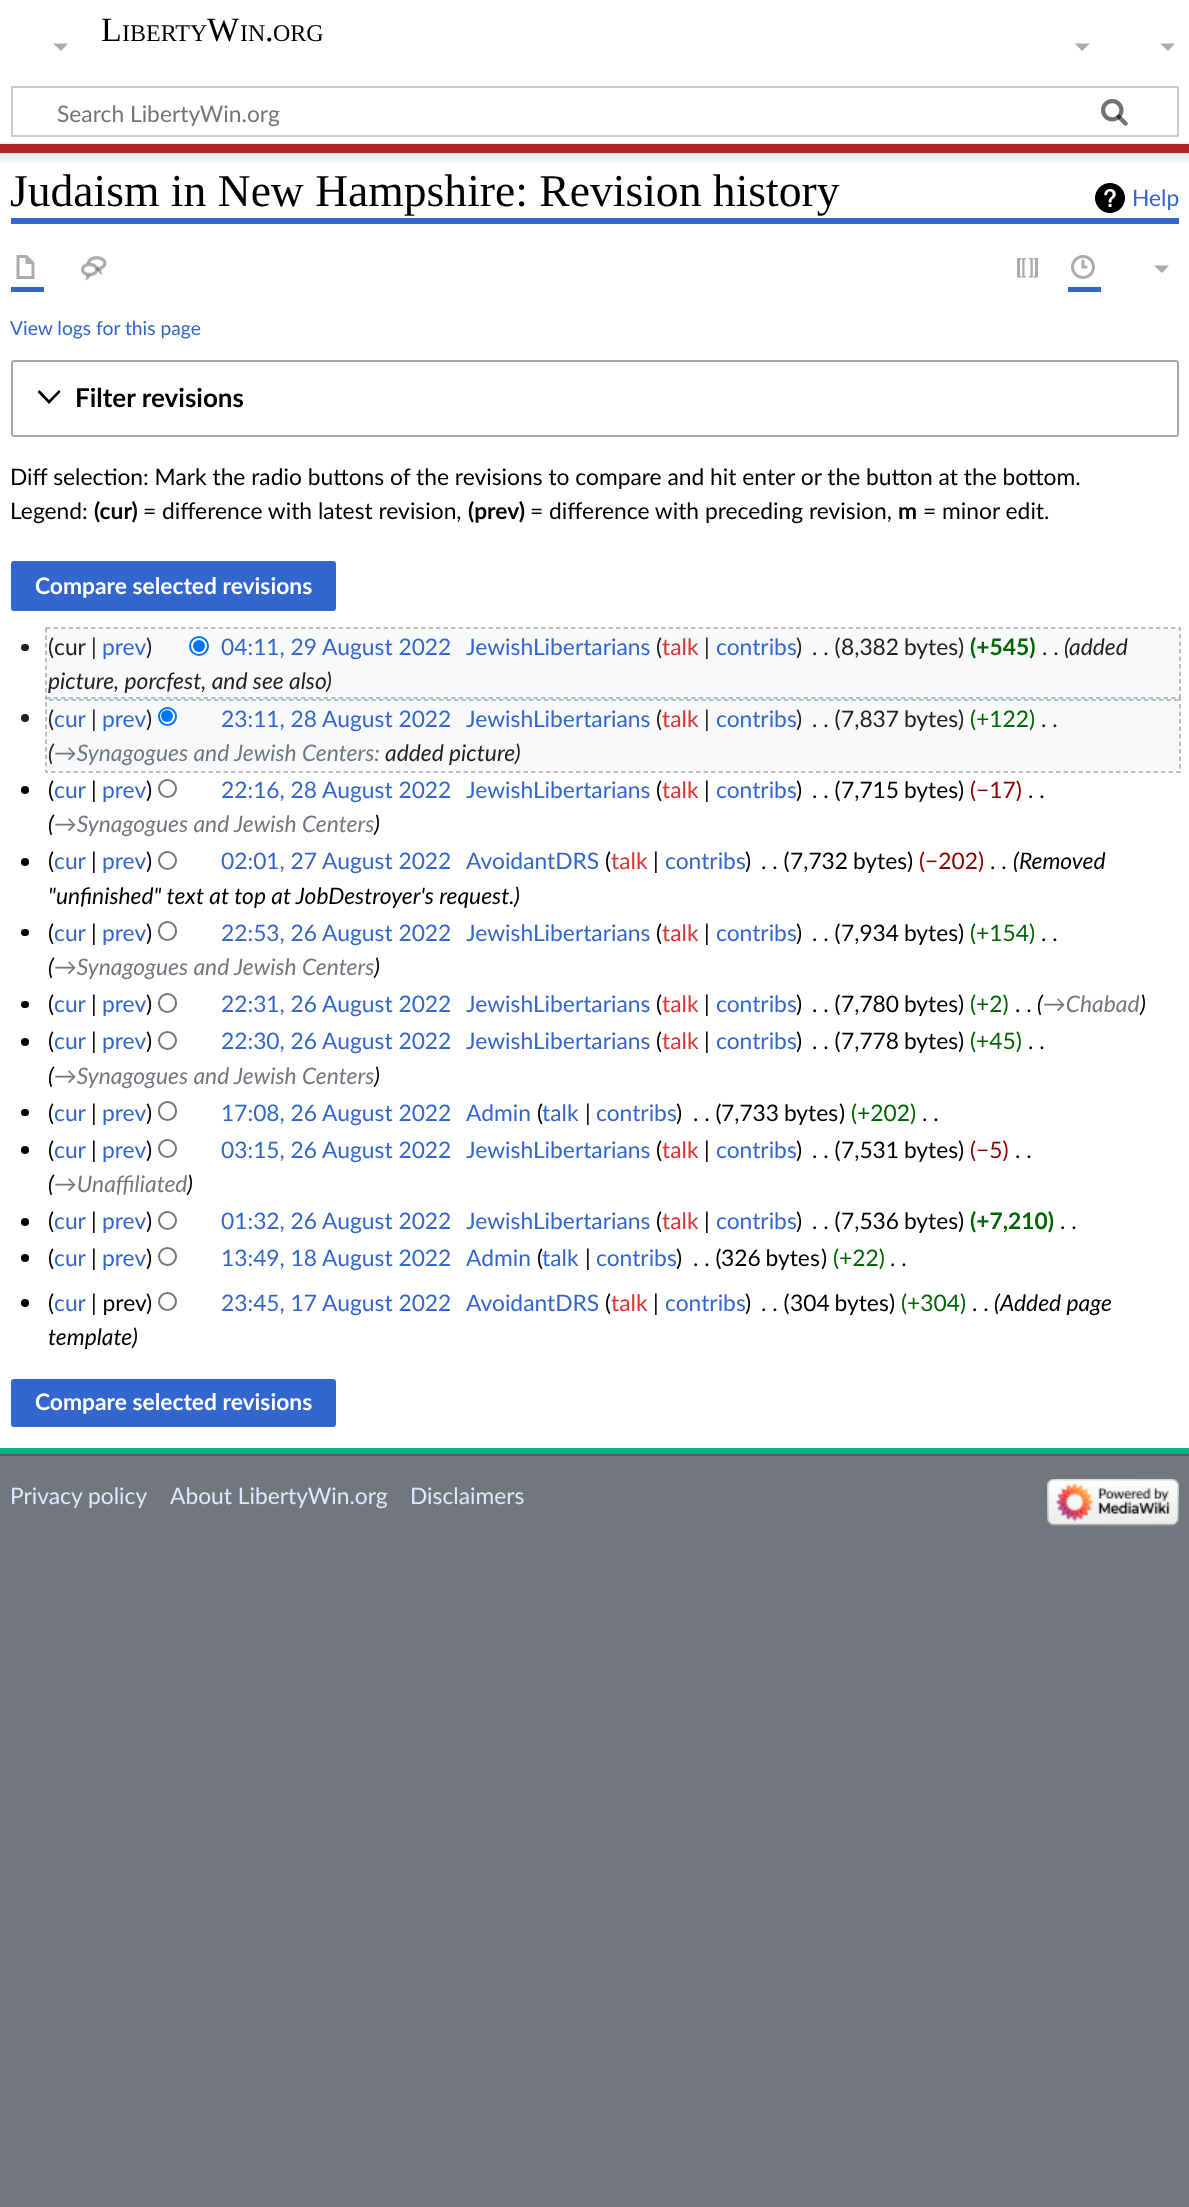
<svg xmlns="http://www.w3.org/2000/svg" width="1189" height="2207">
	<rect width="100%" height="100%" fill="#72777D" />
	<rect x="0" y="0" width="1189" height="144" fill="#FFFFFF" />
	<text x="101" y="41" font-family="Liberation Serif" font-size="34" fill="#000000">L</text>
	<text x="122" y="41" font-family="Liberation Serif" font-size="24" fill="#000000">IBERTY</text>
	<text x="207" y="41" font-family="Liberation Serif" font-size="34" fill="#000000">W</text>
	<text x="240" y="41" font-family="Liberation Serif" font-size="24" fill="#000000">IN</text>
	<text x="265" y="41" font-family="Liberation Serif" font-size="34" fill="#000000">.</text>
	<text x="273" y="41" font-family="Liberation Serif" font-size="24" fill="#000000">ORG</text>
	<path d="M1175 43.5L1168 51L1160 43.5Z" fill="#ABABAB" />
	<rect x="12" y="87" width="1166" height="49" fill="none" stroke="#C8CCD1" stroke-width="2" />
	<image x="1101" y="99" width="27" height="27" href="assets/img1.png" />
	<text x="57" y="122" font-family="Lato" font-size="22.8" fill="#757575">Search LibertyWin.org</text>
	<image x="1101" y="99" width="27" height="27" href="assets/img2.png" />
	<rect x="0" y="153" width="1189" height="1295" fill="#FFFFFF" />
	<rect x="0" y="144" width="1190" height="9" fill="#000000" fill-opacity="0.2" filter="blur(1.5px)" />
	<rect x="-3" y="146" width="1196" height="15" fill="#000000" fill-opacity="0.07" filter="blur(2px)" />
	<rect x="0" y="144" width="1189" height="9" fill="#B32424" />
	<rect x="0" y="1448" width="1189" height="6" fill="#00AF89" />
	<path d="M68 43.5L61 51L53 43.5Z" fill="#ABABAB" />
	<path d="M1090 43.5L1082 51L1075 43.5Z" fill="#ABABAB" />
	<rect x="11" y="218" width="1168" height="6" fill="#3366CC" />
	<text x="10" y="206" font-family="Liberation Serif" font-size="45.6" fill="#000000">Judaism in New Hampshire: Revision history</text>
	<image x="1095" y="183" width="30" height="30" href="assets/img3.png" />
	<text x="1132" y="206" font-family="Lato" font-size="22.8" fill="#3366CC">Help</text>
	<rect x="11" y="287" width="33" height="5" fill="#3366CC" />
	<image x="16" y="255" width="19" height="24" href="assets/img4.png" />
	<image x="81" y="256" width="26" height="25" href="assets/img5.png" />
	<image x="1017" y="258" width="21" height="20" href="assets/img6.png" />
	<rect x="1068" y="287" width="33" height="5" fill="#3366CC" />
	<image x="1071" y="255" width="24" height="24" href="assets/img7.png" />
	<path d="M1169 265.5L1162 273L1154 265.5Z" fill="#ABABAB" />
	<text x="10" y="335" font-family="Lato" font-size="19.25" fill="#3366CC">View logs for this page</text>
	<rect x="12" y="361" width="1166" height="75" rx="2" fill="none" stroke="#A2A9B1" stroke-width="2" />
	<path d="M59 390L49 400L39.5 390L37.5 392L49 404L60.5 392Z" fill="#000000" />
	<text x="75" y="407" font-family="Lato" font-size="26" font-weight="700" fill="#000000">Filter revisions</text>
	<g font-family="Lato" font-size="22.8" fill="#000000">
		<text x="10" y="485">Diff selection: Mark the radio buttons of the revisions to compare and hit enter or the button at the bottom.</text>
		<text x="10" y="519">Legend:</text>
	</g>
	<text x="94" y="519" font-family="Lato" font-size="22.8" font-weight="700" fill="#000000">(cur)</text>
	<text x="143" y="519" font-family="Lato" font-size="22.8" fill="#000000">= difference with latest revision,</text>
	<text x="468" y="519" font-family="Lato" font-size="22.8" font-weight="700" fill="#000000">(prev)</text>
	<text x="530" y="519" font-family="Lato" font-size="22.8" fill="#000000">= difference with preceding revision,</text>
	<text x="898" y="519" font-family="Lato" font-size="22.8" font-weight="700" fill="#000000">m</text>
	<text x="923" y="519" font-family="Lato" font-size="22.8" fill="#000000">= minor edit.</text>
	<rect x="12" y="562" width="323" height="48" rx="2" fill="#3366CC" stroke="#3366CC" stroke-width="2" />
	<text x="35" y="594" font-family="Lato" font-size="22.8" font-weight="700" fill="#FFFFFF">Compare selected revisions</text>
	<rect x="47" y="629" width="1132" height="142" fill="#F8F9FA" />
	<g font-family="Lato" font-size="22.8" fill="#202122">
		<text x="48" y="655">(</text>
		<text x="54" y="655">cur</text>
		<text x="91" y="655">|</text>
	</g>
	<text x="102" y="655" font-family="Lato" font-size="22.8" fill="#3366CC">prev</text>
	<text x="146" y="655" font-family="Lato" font-size="22.8" fill="#202122">)</text>
	<circle cx="199" cy="646" r="9" fill="#FFFFFF" stroke="#0075FF" stroke-width="2" />
	<circle cx="199" cy="646" r="6" fill="#0075FF" />
	<g font-family="Lato" font-size="22.8" fill="#3366CC">
		<text x="221" y="655">04:11, 29 August 2022</text>
		<text x="466" y="655">JewishLibertarians</text>
	</g>
	<text x="656" y="655" font-family="Lato" font-size="22.8" fill="#202122">(</text>
	<text x="662" y="655" font-family="Lato" font-size="22.8" fill="#DD3333">talk</text>
	<text x="704" y="655" font-family="Lato" font-size="22.8" fill="#202122">|</text>
	<text x="716" y="655" font-family="Lato" font-size="22.8" fill="#3366CC">contribs</text>
	<g font-family="Lato" font-size="22.8" fill="#202122">
		<text x="796" y="655">)</text>
		<text x="812" y="655">. . (</text>
		<text x="841" y="655" word-spacing="-1">8,382 bytes</text>
		<text x="958" y="655">)</text>
	</g>
	<text x="970" y="655" font-family="Lato" font-size="22.8" font-weight="700" fill="#006400">(+545)</text>
	<g font-family="Lato" font-size="22.8" font-style="italic" fill="#202122">
		<text x="1064" y="655">(</text>
		<text x="1069" y="655">added</text>
	</g>
	<text x="1042" y="655" font-family="Lato" font-size="22.8" fill="#202122">. .</text>
	<g font-family="Lato" font-size="22.8" font-style="italic" fill="#202122">
		<text x="48" y="689">picture, porcfest, and see also</text>
		<text x="326" y="689">)</text>
	</g>
	<path d="M46 628H1180V700H46Z" fill="none" stroke="#A2A9B1" stroke-width="1.5" stroke-dasharray="4.5 3" />
	<rect x="21" y="644" width="8" height="7" rx="3.5" fill="#202122" />
	<text x="48" y="727" font-family="Lato" font-size="22.8" fill="#202122">(</text>
	<text x="54" y="727" font-family="Lato" font-size="22.8" fill="#3366CC">cur</text>
	<text x="91" y="727" font-family="Lato" font-size="22.8" fill="#202122">|</text>
	<text x="102" y="727" font-family="Lato" font-size="22.8" fill="#3366CC">prev</text>
	<text x="146" y="727" font-family="Lato" font-size="22.8" fill="#202122">)</text>
	<circle cx="167.5" cy="716.5" r="8.5" fill="#FFFFFF" stroke="#0075FF" stroke-width="2" />
	<circle cx="167" cy="716" r="6" fill="#0075FF" />
	<g font-family="Lato" font-size="22.8" fill="#3366CC">
		<text x="221" y="727">23:11, 28 August 2022</text>
		<text x="466" y="727">JewishLibertarians</text>
	</g>
	<text x="656" y="727" font-family="Lato" font-size="22.8" fill="#202122">(</text>
	<text x="662" y="727" font-family="Lato" font-size="22.8" fill="#DD3333">talk</text>
	<text x="704" y="727" font-family="Lato" font-size="22.8" fill="#202122">|</text>
	<text x="716" y="727" font-family="Lato" font-size="22.8" fill="#3366CC">contribs</text>
	<g font-family="Lato" font-size="22.8" fill="#202122">
		<text x="796" y="727">)</text>
		<text x="812" y="727">. . (</text>
		<text x="841" y="727" word-spacing="-1">7,837 bytes</text>
		<text x="958" y="727">)</text>
	</g>
	<text x="970" y="727" font-family="Lato" font-size="22.8" fill="#006400">(+122)</text>
	<text x="1041" y="727" font-family="Lato" font-size="22.8" fill="#202122">. .</text>
	<text x="48" y="761" font-family="Lato" font-size="22.8" font-style="italic" fill="#202122">(</text>
	<text x="54" y="761" font-family="Lato" font-size="22.8" font-style="italic" fill="#72777D">→Synagogues and Jewish Centers:</text>
	<text x="385" y="761" font-family="Lato" font-size="22.8" font-style="italic" fill="#202122">added picture)</text>
	<path d="M46 698H1180V772H46Z" fill="none" stroke="#A2A9B1" stroke-width="1.5" stroke-dasharray="4.5 3" />
	<circle cx="25" cy="718" r="4" fill="#202122" />
	<circle cx="25" cy="790" r="4" fill="#000000" />
	<text x="48" y="798" font-family="Lato" font-size="22.8" fill="#000000">(</text>
	<text x="54" y="798" font-family="Lato" font-size="22.8" fill="#3366CC">cur</text>
	<text x="91" y="798" font-family="Lato" font-size="22.8" fill="#000000">|</text>
	<text x="102" y="798" font-family="Lato" font-size="22.8" fill="#3366CC">prev</text>
	<text x="146" y="798" font-family="Lato" font-size="22.8" fill="#000000">)</text>
	<circle cx="167.5" cy="788.5" r="8.5" fill="none" stroke="#767676" stroke-width="2" />
	<g font-family="Lato" font-size="22.8" fill="#3366CC">
		<text x="221" y="798">22:16, 28 August 2022</text>
		<text x="466" y="798">JewishLibertarians</text>
	</g>
	<text x="656" y="798" font-family="Lato" font-size="22.8" fill="#000000">(</text>
	<text x="662" y="798" font-family="Lato" font-size="22.8" fill="#DD3333">talk</text>
	<text x="704" y="798" font-family="Lato" font-size="22.8" fill="#000000">|</text>
	<text x="716" y="798" font-family="Lato" font-size="22.8" fill="#3366CC">contribs</text>
	<g font-family="Lato" font-size="22.8" fill="#000000">
		<text x="796" y="798">)</text>
		<text x="812" y="798">. . (</text>
		<text x="841" y="798" word-spacing="-1">7,715 bytes</text>
		<text x="958" y="798">)</text>
	</g>
	<text x="970" y="798" font-family="Lato" font-size="22.8" fill="#8B0000">(−17)</text>
	<text x="1028" y="798" font-family="Lato" font-size="22.8" fill="#000000">. .</text>
	<text x="48" y="832" font-family="Lato" font-size="22.8" font-style="italic" fill="#000000">(</text>
	<text x="54" y="832" font-family="Lato" font-size="22.8" font-style="italic" fill="#72777D">→Synagogues and Jewish Centers</text>
	<text x="374" y="832" font-family="Lato" font-size="22.8" font-style="italic" fill="#000000">)</text>
	<circle cx="25" cy="862" r="4" fill="#000000" />
	<text x="48" y="869" font-family="Lato" font-size="22.8" fill="#000000">(</text>
	<text x="54" y="869" font-family="Lato" font-size="22.8" fill="#3366CC">cur</text>
	<text x="91" y="869" font-family="Lato" font-size="22.8" fill="#000000">|</text>
	<text x="102" y="869" font-family="Lato" font-size="22.8" fill="#3366CC">prev</text>
	<text x="146" y="869" font-family="Lato" font-size="22.8" fill="#000000">)</text>
	<circle cx="167.5" cy="860.5" r="8.5" fill="none" stroke="#767676" stroke-width="2" />
	<g font-family="Lato" font-size="22.8" fill="#3366CC">
		<text x="221" y="869">02:01, 27 August 2022</text>
		<text x="466" y="869">AvoidantDRS</text>
	</g>
	<text x="605" y="869" font-family="Lato" font-size="22.8" fill="#000000">(</text>
	<text x="611" y="869" font-family="Lato" font-size="22.8" fill="#DD3333">talk</text>
	<text x="653" y="869" font-family="Lato" font-size="22.8" fill="#000000">|</text>
	<text x="665" y="869" font-family="Lato" font-size="22.8" fill="#3366CC">contribs</text>
	<g font-family="Lato" font-size="22.8" fill="#000000">
		<text x="745" y="869">)</text>
		<text x="761" y="869">. . (</text>
		<text x="790" y="869" word-spacing="-1">7,732 bytes</text>
		<text x="907" y="869">)</text>
	</g>
	<text x="919" y="869" font-family="Lato" font-size="22.8" fill="#8B0000">(−202)</text>
	<text x="1013" y="869" font-family="Lato" font-size="22.8" font-style="italic" fill="#000000">(Removed</text>
	<text x="990" y="869" font-family="Lato" font-size="22.8" fill="#000000">. .</text>
	<g font-family="Lato" font-size="22.8" font-style="italic" fill="#000000">
		<text x="48" y="904">"unfinished" text at top at JobDestroyer's request.</text>
		<text x="514" y="904">)</text>
	</g>
	<rect x="21" y="929" width="8" height="7" rx="3.5" fill="#000000" />
	<text x="48" y="941" font-family="Lato" font-size="22.8" fill="#000000">(</text>
	<text x="54" y="941" font-family="Lato" font-size="22.8" fill="#3366CC">cur</text>
	<text x="91" y="941" font-family="Lato" font-size="22.8" fill="#000000">|</text>
	<text x="102" y="941" font-family="Lato" font-size="22.8" fill="#3366CC">prev</text>
	<text x="146" y="941" font-family="Lato" font-size="22.8" fill="#000000">)</text>
	<rect x="159" y="922" width="17" height="18" rx="8.5" fill="none" stroke="#767676" stroke-width="2" />
	<g font-family="Lato" font-size="22.8" fill="#3366CC">
		<text x="221" y="941">22:53, 26 August 2022</text>
		<text x="466" y="941">JewishLibertarians</text>
	</g>
	<text x="656" y="941" font-family="Lato" font-size="22.8" fill="#000000">(</text>
	<text x="662" y="941" font-family="Lato" font-size="22.8" fill="#DD3333">talk</text>
	<text x="704" y="941" font-family="Lato" font-size="22.8" fill="#000000">|</text>
	<text x="716" y="941" font-family="Lato" font-size="22.8" fill="#3366CC">contribs</text>
	<g font-family="Lato" font-size="22.8" fill="#000000">
		<text x="796" y="941">)</text>
		<text x="812" y="941">. . (</text>
		<text x="841" y="941" word-spacing="-1">7,934 bytes</text>
		<text x="958" y="941">)</text>
	</g>
	<text x="970" y="941" font-family="Lato" font-size="22.8" fill="#006400">(+154)</text>
	<text x="1041" y="941" font-family="Lato" font-size="22.8" fill="#000000">. .</text>
	<text x="48" y="975" font-family="Lato" font-size="22.8" font-style="italic" fill="#000000">(</text>
	<text x="54" y="975" font-family="Lato" font-size="22.8" font-style="italic" fill="#72777D">→Synagogues and Jewish Centers</text>
	<text x="374" y="975" font-family="Lato" font-size="22.8" font-style="italic" fill="#000000">)</text>
	<rect x="21" y="1001" width="8" height="7" rx="3.5" fill="#000000" />
	<text x="48" y="1012" font-family="Lato" font-size="22.8" fill="#000000">(</text>
	<text x="54" y="1012" font-family="Lato" font-size="22.8" fill="#3366CC">cur</text>
	<text x="91" y="1012" font-family="Lato" font-size="22.8" fill="#000000">|</text>
	<text x="102" y="1012" font-family="Lato" font-size="22.8" fill="#3366CC">prev</text>
	<text x="146" y="1012" font-family="Lato" font-size="22.8" fill="#000000">)</text>
	<rect x="159" y="994" width="17" height="18" rx="8.5" fill="none" stroke="#767676" stroke-width="2" />
	<g font-family="Lato" font-size="22.8" fill="#3366CC">
		<text x="221" y="1012">22:31, 26 August 2022</text>
		<text x="466" y="1012">JewishLibertarians</text>
	</g>
	<text x="656" y="1012" font-family="Lato" font-size="22.8" fill="#000000">(</text>
	<text x="662" y="1012" font-family="Lato" font-size="22.8" fill="#DD3333">talk</text>
	<text x="704" y="1012" font-family="Lato" font-size="22.8" fill="#000000">|</text>
	<text x="716" y="1012" font-family="Lato" font-size="22.8" fill="#3366CC">contribs</text>
	<g font-family="Lato" font-size="22.8" fill="#000000">
		<text x="796" y="1012">)</text>
		<text x="812" y="1012">. . (</text>
		<text x="841" y="1012" word-spacing="-1">7,780 bytes</text>
		<text x="958" y="1012">)</text>
	</g>
	<text x="970" y="1012" font-family="Lato" font-size="22.8" fill="#006400">(+2)</text>
	<text x="1037" y="1012" font-family="Lato" font-size="22.8" font-style="italic" fill="#000000">(</text>
	<text x="1043" y="1012" font-family="Lato" font-size="22.8" font-style="italic" fill="#72777D">→Chabad</text>
	<text x="1140" y="1012" font-family="Lato" font-size="22.8" font-style="italic" fill="#000000">)</text>
	<text x="1015" y="1012" font-family="Lato" font-size="22.8" fill="#000000">. .</text>
	<circle cx="25" cy="1042" r="4" fill="#000000" />
	<text x="48" y="1049" font-family="Lato" font-size="22.8" fill="#000000">(</text>
	<text x="54" y="1049" font-family="Lato" font-size="22.8" fill="#3366CC">cur</text>
	<text x="91" y="1049" font-family="Lato" font-size="22.8" fill="#000000">|</text>
	<text x="102" y="1049" font-family="Lato" font-size="22.8" fill="#3366CC">prev</text>
	<text x="146" y="1049" font-family="Lato" font-size="22.8" fill="#000000">)</text>
	<circle cx="167.5" cy="1040.5" r="8.5" fill="none" stroke="#767676" stroke-width="2" />
	<g font-family="Lato" font-size="22.8" fill="#3366CC">
		<text x="221" y="1049">22:30, 26 August 2022</text>
		<text x="466" y="1049">JewishLibertarians</text>
	</g>
	<text x="656" y="1049" font-family="Lato" font-size="22.8" fill="#000000">(</text>
	<text x="662" y="1049" font-family="Lato" font-size="22.8" fill="#DD3333">talk</text>
	<text x="704" y="1049" font-family="Lato" font-size="22.8" fill="#000000">|</text>
	<text x="716" y="1049" font-family="Lato" font-size="22.8" fill="#3366CC">contribs</text>
	<g font-family="Lato" font-size="22.8" fill="#000000">
		<text x="796" y="1049">)</text>
		<text x="812" y="1049">. . (</text>
		<text x="841" y="1049" word-spacing="-1">7,778 bytes</text>
		<text x="958" y="1049">)</text>
	</g>
	<text x="970" y="1049" font-family="Lato" font-size="22.8" fill="#006400">(+45)</text>
	<text x="1028" y="1049" font-family="Lato" font-size="22.8" fill="#000000">. .</text>
	<text x="48" y="1084" font-family="Lato" font-size="22.8" font-style="italic" fill="#000000">(</text>
	<text x="54" y="1084" font-family="Lato" font-size="22.8" font-style="italic" fill="#72777D">→Synagogues and Jewish Centers</text>
	<text x="374" y="1084" font-family="Lato" font-size="22.8" font-style="italic" fill="#000000">)</text>
	<rect x="21" y="1109" width="8" height="7" rx="3.5" fill="#000000" />
	<text x="48" y="1121" font-family="Lato" font-size="22.8" fill="#000000">(</text>
	<text x="54" y="1121" font-family="Lato" font-size="22.8" fill="#3366CC">cur</text>
	<text x="91" y="1121" font-family="Lato" font-size="22.8" fill="#000000">|</text>
	<text x="102" y="1121" font-family="Lato" font-size="22.8" fill="#3366CC">prev</text>
	<text x="146" y="1121" font-family="Lato" font-size="22.8" fill="#000000">)</text>
	<rect x="159" y="1102" width="17" height="18" rx="8.5" fill="none" stroke="#767676" stroke-width="2" />
	<g font-family="Lato" font-size="22.8" fill="#3366CC">
		<text x="221" y="1121">17:08, 26 August 2022</text>
		<text x="466" y="1121">Admin</text>
	</g>
	<text x="537" y="1121" font-family="Lato" font-size="22.8" fill="#000000">(</text>
	<text x="542" y="1121" font-family="Lato" font-size="22.8" fill="#3366CC">talk</text>
	<text x="585" y="1121" font-family="Lato" font-size="22.8" fill="#000000">|</text>
	<text x="596" y="1121" font-family="Lato" font-size="22.8" fill="#3366CC">contribs</text>
	<g font-family="Lato" font-size="22.8" fill="#000000">
		<text x="676" y="1121">)</text>
		<text x="693" y="1121">. . (</text>
		<text x="721" y="1121" word-spacing="-1">7,733 bytes</text>
		<text x="839" y="1121">)</text>
	</g>
	<text x="851" y="1121" font-family="Lato" font-size="22.8" fill="#006400">(+202)</text>
	<text x="922" y="1121" font-family="Lato" font-size="22.8" fill="#000000">. .</text>
	<circle cx="25" cy="1150" r="4" fill="#000000" />
	<text x="48" y="1158" font-family="Lato" font-size="22.8" fill="#000000">(</text>
	<text x="54" y="1158" font-family="Lato" font-size="22.8" fill="#3366CC">cur</text>
	<text x="91" y="1158" font-family="Lato" font-size="22.8" fill="#000000">|</text>
	<text x="102" y="1158" font-family="Lato" font-size="22.8" fill="#3366CC">prev</text>
	<text x="146" y="1158" font-family="Lato" font-size="22.8" fill="#000000">)</text>
	<circle cx="167.5" cy="1148.5" r="8.5" fill="none" stroke="#767676" stroke-width="2" />
	<g font-family="Lato" font-size="22.8" fill="#3366CC">
		<text x="221" y="1158">03:15, 26 August 2022</text>
		<text x="466" y="1158">JewishLibertarians</text>
	</g>
	<text x="656" y="1158" font-family="Lato" font-size="22.8" fill="#000000">(</text>
	<text x="662" y="1158" font-family="Lato" font-size="22.8" fill="#DD3333">talk</text>
	<text x="704" y="1158" font-family="Lato" font-size="22.8" fill="#000000">|</text>
	<text x="716" y="1158" font-family="Lato" font-size="22.8" fill="#3366CC">contribs</text>
	<g font-family="Lato" font-size="22.8" fill="#000000">
		<text x="796" y="1158">)</text>
		<text x="812" y="1158">. . (</text>
		<text x="841" y="1158" word-spacing="-1">7,531 bytes</text>
		<text x="958" y="1158">)</text>
	</g>
	<text x="970" y="1158" font-family="Lato" font-size="22.8" fill="#8B0000">(−5)</text>
	<text x="1015" y="1158" font-family="Lato" font-size="22.8" fill="#000000">. .</text>
	<text x="48" y="1192" font-family="Lato" font-size="22.8" font-style="italic" fill="#000000">(</text>
	<text x="54" y="1192" font-family="Lato" font-size="22.8" font-style="italic" fill="#72777D">→Unaffiliated</text>
	<text x="187" y="1192" font-family="Lato" font-size="22.8" font-style="italic" fill="#000000">)</text>
	<circle cx="25" cy="1222" r="4" fill="#000000" />
	<text x="48" y="1229" font-family="Lato" font-size="22.8" fill="#000000">(</text>
	<text x="54" y="1229" font-family="Lato" font-size="22.8" fill="#3366CC">cur</text>
	<text x="91" y="1229" font-family="Lato" font-size="22.8" fill="#000000">|</text>
	<text x="102" y="1229" font-family="Lato" font-size="22.8" fill="#3366CC">prev</text>
	<text x="146" y="1229" font-family="Lato" font-size="22.8" fill="#000000">)</text>
	<circle cx="167.5" cy="1220.5" r="8.5" fill="none" stroke="#767676" stroke-width="2" />
	<g font-family="Lato" font-size="22.8" fill="#3366CC">
		<text x="221" y="1229">01:32, 26 August 2022</text>
		<text x="466" y="1229">JewishLibertarians</text>
	</g>
	<text x="656" y="1229" font-family="Lato" font-size="22.8" fill="#000000">(</text>
	<text x="662" y="1229" font-family="Lato" font-size="22.8" fill="#DD3333">talk</text>
	<text x="704" y="1229" font-family="Lato" font-size="22.8" fill="#000000">|</text>
	<text x="716" y="1229" font-family="Lato" font-size="22.8" fill="#3366CC">contribs</text>
	<g font-family="Lato" font-size="22.8" fill="#000000">
		<text x="796" y="1229">)</text>
		<text x="812" y="1229">. . (</text>
		<text x="841" y="1229" word-spacing="-1">7,536 bytes</text>
		<text x="958" y="1229">)</text>
	</g>
	<text x="970" y="1229" font-family="Lato" font-size="22.8" font-weight="700" fill="#006400">(+7,210)</text>
	<text x="1060" y="1229" font-family="Lato" font-size="22.8" fill="#000000">. .</text>
	<circle cx="25" cy="1258" r="4" fill="#000000" />
	<text x="48" y="1266" font-family="Lato" font-size="22.8" fill="#000000">(</text>
	<text x="54" y="1266" font-family="Lato" font-size="22.8" fill="#3366CC">cur</text>
	<text x="91" y="1266" font-family="Lato" font-size="22.8" fill="#000000">|</text>
	<text x="102" y="1266" font-family="Lato" font-size="22.8" fill="#3366CC">prev</text>
	<text x="146" y="1266" font-family="Lato" font-size="22.8" fill="#000000">)</text>
	<circle cx="167.5" cy="1256.5" r="8.5" fill="none" stroke="#767676" stroke-width="2" />
	<g font-family="Lato" font-size="22.8" fill="#3366CC">
		<text x="221" y="1266">13:49, 18 August 2022</text>
		<text x="466" y="1266">Admin</text>
	</g>
	<text x="537" y="1266" font-family="Lato" font-size="22.8" fill="#000000">(</text>
	<text x="542" y="1266" font-family="Lato" font-size="22.8" fill="#3366CC">talk</text>
	<text x="585" y="1266" font-family="Lato" font-size="22.8" fill="#000000">|</text>
	<text x="596" y="1266" font-family="Lato" font-size="22.8" fill="#3366CC">contribs</text>
	<g font-family="Lato" font-size="22.8" fill="#000000">
		<text x="676" y="1266">)</text>
		<text x="693" y="1266">. . (</text>
		<text x="721" y="1266" word-spacing="-1">326 bytes</text>
		<text x="821" y="1266">)</text>
	</g>
	<text x="833" y="1266" font-family="Lato" font-size="22.8" fill="#006400">(+22)</text>
	<text x="890" y="1266" font-family="Lato" font-size="22.8" fill="#000000">. .</text>
	<circle cx="25" cy="1303" r="4" fill="#000000" />
	<text x="48" y="1311" font-family="Lato" font-size="22.8" fill="#000000">(</text>
	<text x="54" y="1311" font-family="Lato" font-size="22.8" fill="#3366CC">cur</text>
	<g font-family="Lato" font-size="22.8" fill="#000000">
		<text x="91" y="1311">| prev</text>
		<text x="146" y="1311">)</text>
	</g>
	<circle cx="167.5" cy="1301.5" r="8.5" fill="none" stroke="#767676" stroke-width="2" />
	<g font-family="Lato" font-size="22.8" fill="#3366CC">
		<text x="221" y="1311">23:45, 17 August 2022</text>
		<text x="466" y="1311">AvoidantDRS</text>
	</g>
	<text x="605" y="1311" font-family="Lato" font-size="22.8" fill="#000000">(</text>
	<text x="611" y="1311" font-family="Lato" font-size="22.8" fill="#DD3333">talk</text>
	<text x="653" y="1311" font-family="Lato" font-size="22.8" fill="#000000">|</text>
	<text x="665" y="1311" font-family="Lato" font-size="22.8" fill="#3366CC">contribs</text>
	<g font-family="Lato" font-size="22.8" fill="#000000">
		<text x="745" y="1311">)</text>
		<text x="761" y="1311">. . (</text>
		<text x="790" y="1311" word-spacing="-1">304 bytes</text>
		<text x="889" y="1311">)</text>
	</g>
	<text x="901" y="1311" font-family="Lato" font-size="22.8" fill="#006400">(+304)</text>
	<text x="994" y="1311" font-family="Lato" font-size="22.8" font-style="italic" fill="#000000">(Added page</text>
	<text x="972" y="1311" font-family="Lato" font-size="22.8" fill="#000000">. .</text>
	<g font-family="Lato" font-size="22.8" font-style="italic" fill="#000000">
		<text x="48" y="1345">template</text>
		<text x="132" y="1345">)</text>
	</g>
	<rect x="12" y="1380" width="323" height="46" rx="2" fill="#3366CC" stroke="#3366CC" stroke-width="2" />
	<text x="35" y="1410" font-family="Lato" font-size="22.8" font-weight="700" fill="#FFFFFF">Compare selected revisions</text>
	<rect x="0" y="1454" width="1189" height="2" fill="#54595D" />
	<g font-family="Lato" font-size="22.8" fill="#DBEAFF">
		<text x="10" y="1504">Privacy policy</text>
		<text x="170" y="1504">About LibertyWin.org</text>
		<text x="410" y="1504">Disclaimers</text>
	</g>
	<image x="1047" y="1479" width="132" height="47" href="assets/img8.png" />
</svg>
